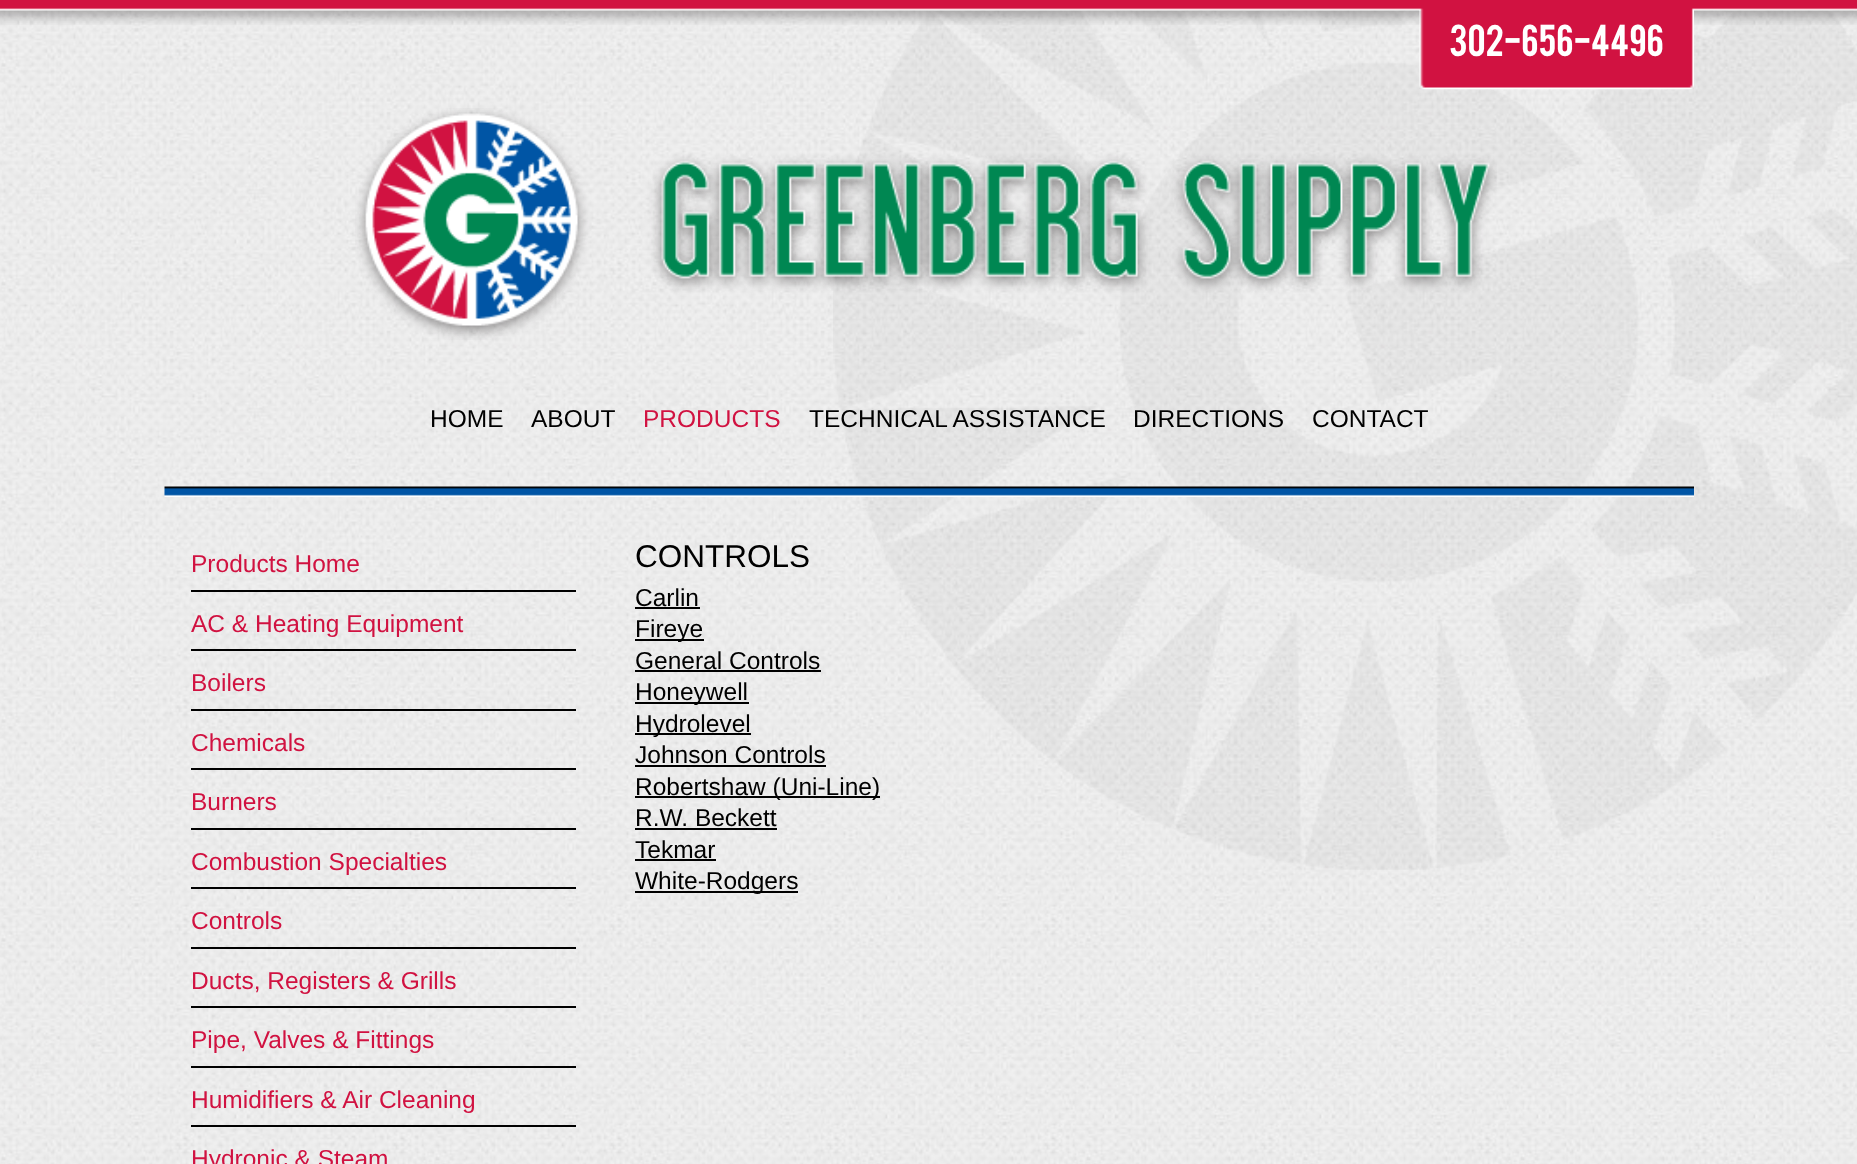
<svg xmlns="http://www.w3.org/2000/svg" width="1857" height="1164">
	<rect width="100%" height="100%" fill="#FFFFFF" />
	<image x="0" y="10" width="1857" height="1154" href="assets/img1.png" />
	<image x="0" y="0" width="1857" height="25" href="assets/img2.png" />
	<image x="833" y="11" width="1024" height="859" href="assets/img3.png" />
	<image x="1419" y="8" width="275" height="82" href="assets/img4.png" />
	<text x="1449" y="56" font-family="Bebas" font-size="35" fill="#FFFFFF">302-656-4496</text>
	<image x="355" y="108" width="1142" height="232" href="assets/img5.png" />
	<g font-family="Liberation Sans" font-size="24.5" fill="#000000">
		<text x="430" y="427">HOME</text>
		<text x="531" y="427">ABOUT</text>
	</g>
	<text x="643" y="427" font-family="Liberation Sans" font-size="24.5" fill="#D11241">PRODUCTS</text>
	<g font-family="Liberation Sans" font-size="24.5" fill="#000000">
		<text x="809" y="427">TECHNICAL ASSISTANCE</text>
		<text x="1133" y="427">DIRECTIONS</text>
		<text x="1312" y="427">CONTACT</text>
	</g>
	<image x="164" y="486" width="1530" height="11" href="assets/img6.png" />
	<rect x="191" y="590" width="385" height="2" fill="#000000" />
	<text x="191" y="572" font-family="Liberation Sans" font-size="24.5" fill="#D11241">Products Home</text>
	<rect x="191" y="649" width="385" height="2" fill="#000000" />
	<text x="191" y="632" font-family="Liberation Sans" font-size="24.5" fill="#D11241">AC &amp; Heating Equipment</text>
	<rect x="191" y="709" width="385" height="2" fill="#000000" />
	<text x="191" y="691" font-family="Liberation Sans" font-size="24.5" fill="#D11241">Boilers</text>
	<rect x="191" y="768" width="385" height="2" fill="#000000" />
	<text x="191" y="751" font-family="Liberation Sans" font-size="24.5" fill="#D11241">Chemicals</text>
	<rect x="191" y="828" width="385" height="2" fill="#000000" />
	<text x="191" y="810" font-family="Liberation Sans" font-size="24.5" fill="#D11241">Burners</text>
	<rect x="191" y="887" width="385" height="2" fill="#000000" />
	<text x="191" y="870" font-family="Liberation Sans" font-size="24.5" fill="#D11241">Combustion Specialties</text>
	<rect x="191" y="947" width="385" height="2" fill="#000000" />
	<text x="191" y="929" font-family="Liberation Sans" font-size="24.5" fill="#D11241">Controls</text>
	<rect x="191" y="1006" width="385" height="2" fill="#000000" />
	<text x="191" y="989" font-family="Liberation Sans" font-size="24.5" fill="#D11241">Ducts, Registers &amp; Grills</text>
	<rect x="191" y="1066" width="385" height="2" fill="#000000" />
	<text x="191" y="1048" font-family="Liberation Sans" font-size="24.5" fill="#D11241">Pipe, Valves &amp; Fittings</text>
	<rect x="191" y="1125" width="385" height="2" fill="#000000" />
	<g font-family="Liberation Sans" font-size="24.5" fill="#D11241">
		<text x="191" y="1108">Humidifiers &amp; Air Cleaning</text>
		<text x="191" y="1167">Hydronic &amp; Steam</text>
	</g>
	<text x="635" y="567" font-family="Liberation Sans" font-size="31.5" fill="#000000">CONTROLS</text>
	<text x="635" y="606" font-family="Liberation Sans" font-size="24.5" fill="#000000">Carlin</text>
	<rect x="635" y="607" width="65" height="2" fill="#000000" />
	<rect x="635" y="639" width="69" height="2" fill="#000000" />
	<g font-family="Liberation Sans" font-size="24.5" fill="#000000">
		<text x="635" y="637">Fireye</text>
		<text x="635" y="669">General Controls</text>
	</g>
	<rect x="635" y="670" width="186" height="2" fill="#000000" />
	<rect x="635" y="702" width="114" height="2" fill="#000000" />
	<text x="635" y="700" font-family="Liberation Sans" font-size="24.5" fill="#000000">Honeywell</text>
	<rect x="635" y="733" width="116" height="2" fill="#000000" />
	<g font-family="Liberation Sans" font-size="24.5" fill="#000000">
		<text x="635" y="732">Hydrolevel</text>
		<text x="635" y="763">Johnson Controls</text>
	</g>
	<rect x="635" y="765" width="191" height="2" fill="#000000" />
	<rect x="635" y="796" width="245" height="2" fill="#000000" />
	<g font-family="Liberation Sans" font-size="24.5" fill="#000000">
		<text x="635" y="795">Robertshaw (Uni-Line)</text>
		<text x="635" y="826">R.W. Beckett</text>
	</g>
	<rect x="635" y="828" width="142" height="2" fill="#000000" />
	<text x="635" y="858" font-family="Liberation Sans" font-size="24.5" fill="#000000">Tekmar</text>
	<rect x="635" y="859" width="81" height="2" fill="#000000" />
	<rect x="635" y="891" width="163" height="2" fill="#000000" />
	<text x="635" y="889" font-family="Liberation Sans" font-size="24.5" fill="#000000">White-Rodgers</text>
</svg>
